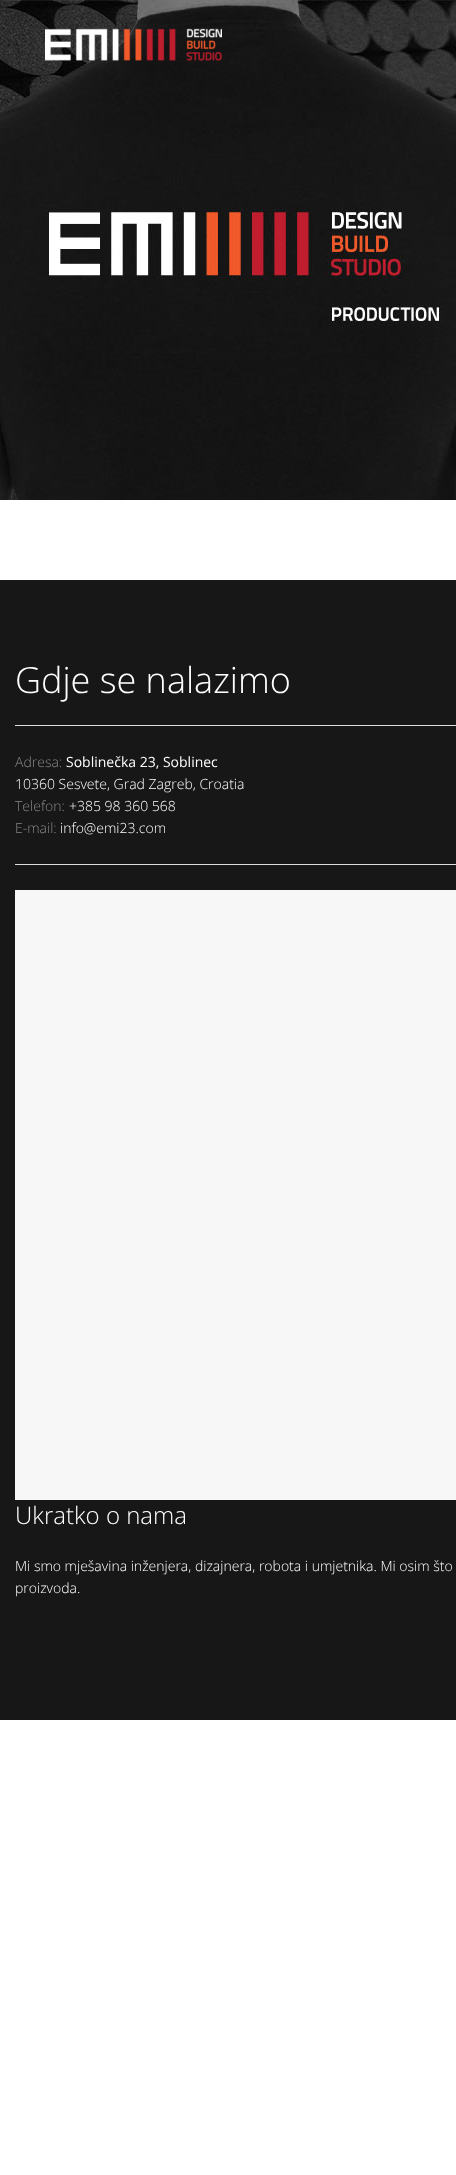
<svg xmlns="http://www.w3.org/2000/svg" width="456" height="2175">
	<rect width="100%" height="100%" fill="#FFFFFF" />
	<image x="0" y="0" width="456" height="500" href="assets/img2.png" />
	<image x="45" y="28" width="177" height="33" href="assets/img1.png" />
	<rect x="0" y="580" width="456" height="1140" fill="#171717" />
	<text x="15" y="693" font-family="Open Sans" font-size="36" font-weight="300" fill="#FFFFFF">Gdje se nalazimo</text>
	<rect x="15" y="725" width="441" height="1" fill="#DDDDDD" />
	<text x="15" y="767" font-family="Open Sans" font-size="14" font-weight="300" fill="#888888">Adresa:</text>
	<text x="66" y="767" font-family="Open Sans" font-size="14" fill="#FFFFFF">Soblinečka 23, Soblinec</text>
	<text x="15" y="789" font-family="Open Sans" font-size="14" font-weight="300" fill="#FFFFFF">10360 Sesvete, Grad Zagreb, Croatia</text>
	<text x="15" y="811" font-family="Open Sans" font-size="14" font-weight="300" fill="#888888">Telefon:</text>
	<text x="69" y="811" font-family="Open Sans" font-size="14" font-weight="300" fill="#FFFFFF">+385 98 360 568</text>
	<text x="15" y="833" font-family="Open Sans" font-size="14" font-weight="300" fill="#888888">E-mail:</text>
	<text x="60" y="833" font-family="Open Sans" font-size="14" font-weight="300" fill="#FFFFFF">info@emi23.com</text>
	<rect x="15" y="864" width="441" height="1" fill="#DDDDDD" />
	<rect x="15" y="890" width="441" height="610" fill="#F7F7F7" />
	<text x="15" y="1524" font-family="Open Sans" font-size="24" font-weight="300" fill="#FFFFFF">Ukratko o nama</text>
	<g font-family="Open Sans" font-size="14" font-weight="300" fill="#FFFFFF">
		<text x="15" y="1571">Mi smo mješavina inženjera, dizajnera, robota i umjetnika. Mi osim što</text>
		<text x="15" y="1593">proizvoda.</text>
	</g>
</svg>
